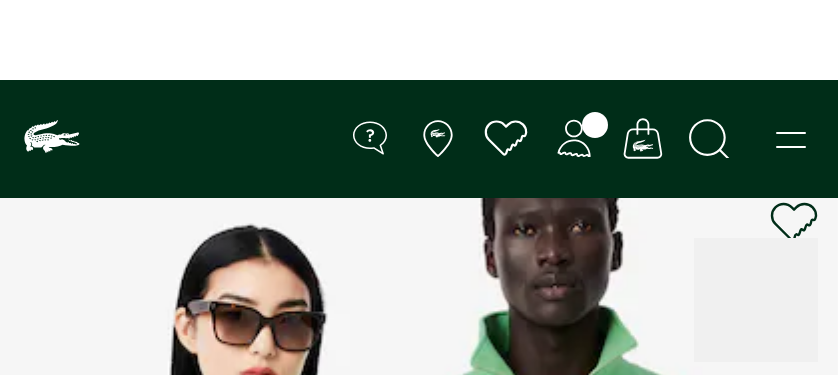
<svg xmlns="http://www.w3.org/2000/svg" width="838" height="375">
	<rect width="100%" height="100%" fill="#FFFFFF" />
	<rect x="0" y="80" width="838" height="118" fill="#002D18" />
	<image x="24" y="120" width="56" height="33" href="assets/img1.png" />
	<image x="353" y="121" width="34" height="34" href="assets/img2.png" />
	<image x="423" y="120" width="30" height="37" href="assets/img3.png" />
	<image x="484" y="120" width="44" height="36" href="assets/img4.png" />
	<image x="557" y="119" width="34" height="38" href="assets/img5.png" />
	<circle cx="595" cy="125" r="13" fill="#FFFFFF" />
	<image x="623" y="118" width="40" height="41" href="assets/img6.png" />
	<image x="689" y="119" width="41" height="39" href="assets/img7.png" />
	<rect x="776" y="132" width="30" height="2" rx="1" fill="#FFFFFF" />
	<rect x="776" y="146" width="30" height="2" rx="1" fill="#FFFFFF" />
	<image x="0" y="198" width="838" height="177" href="assets/img8.png" />
	<image x="770" y="202" width="48" height="36" href="assets/img9.png" />
	<rect x="694" y="238" width="124" height="124" fill="#F0F0F0" />
</svg>
